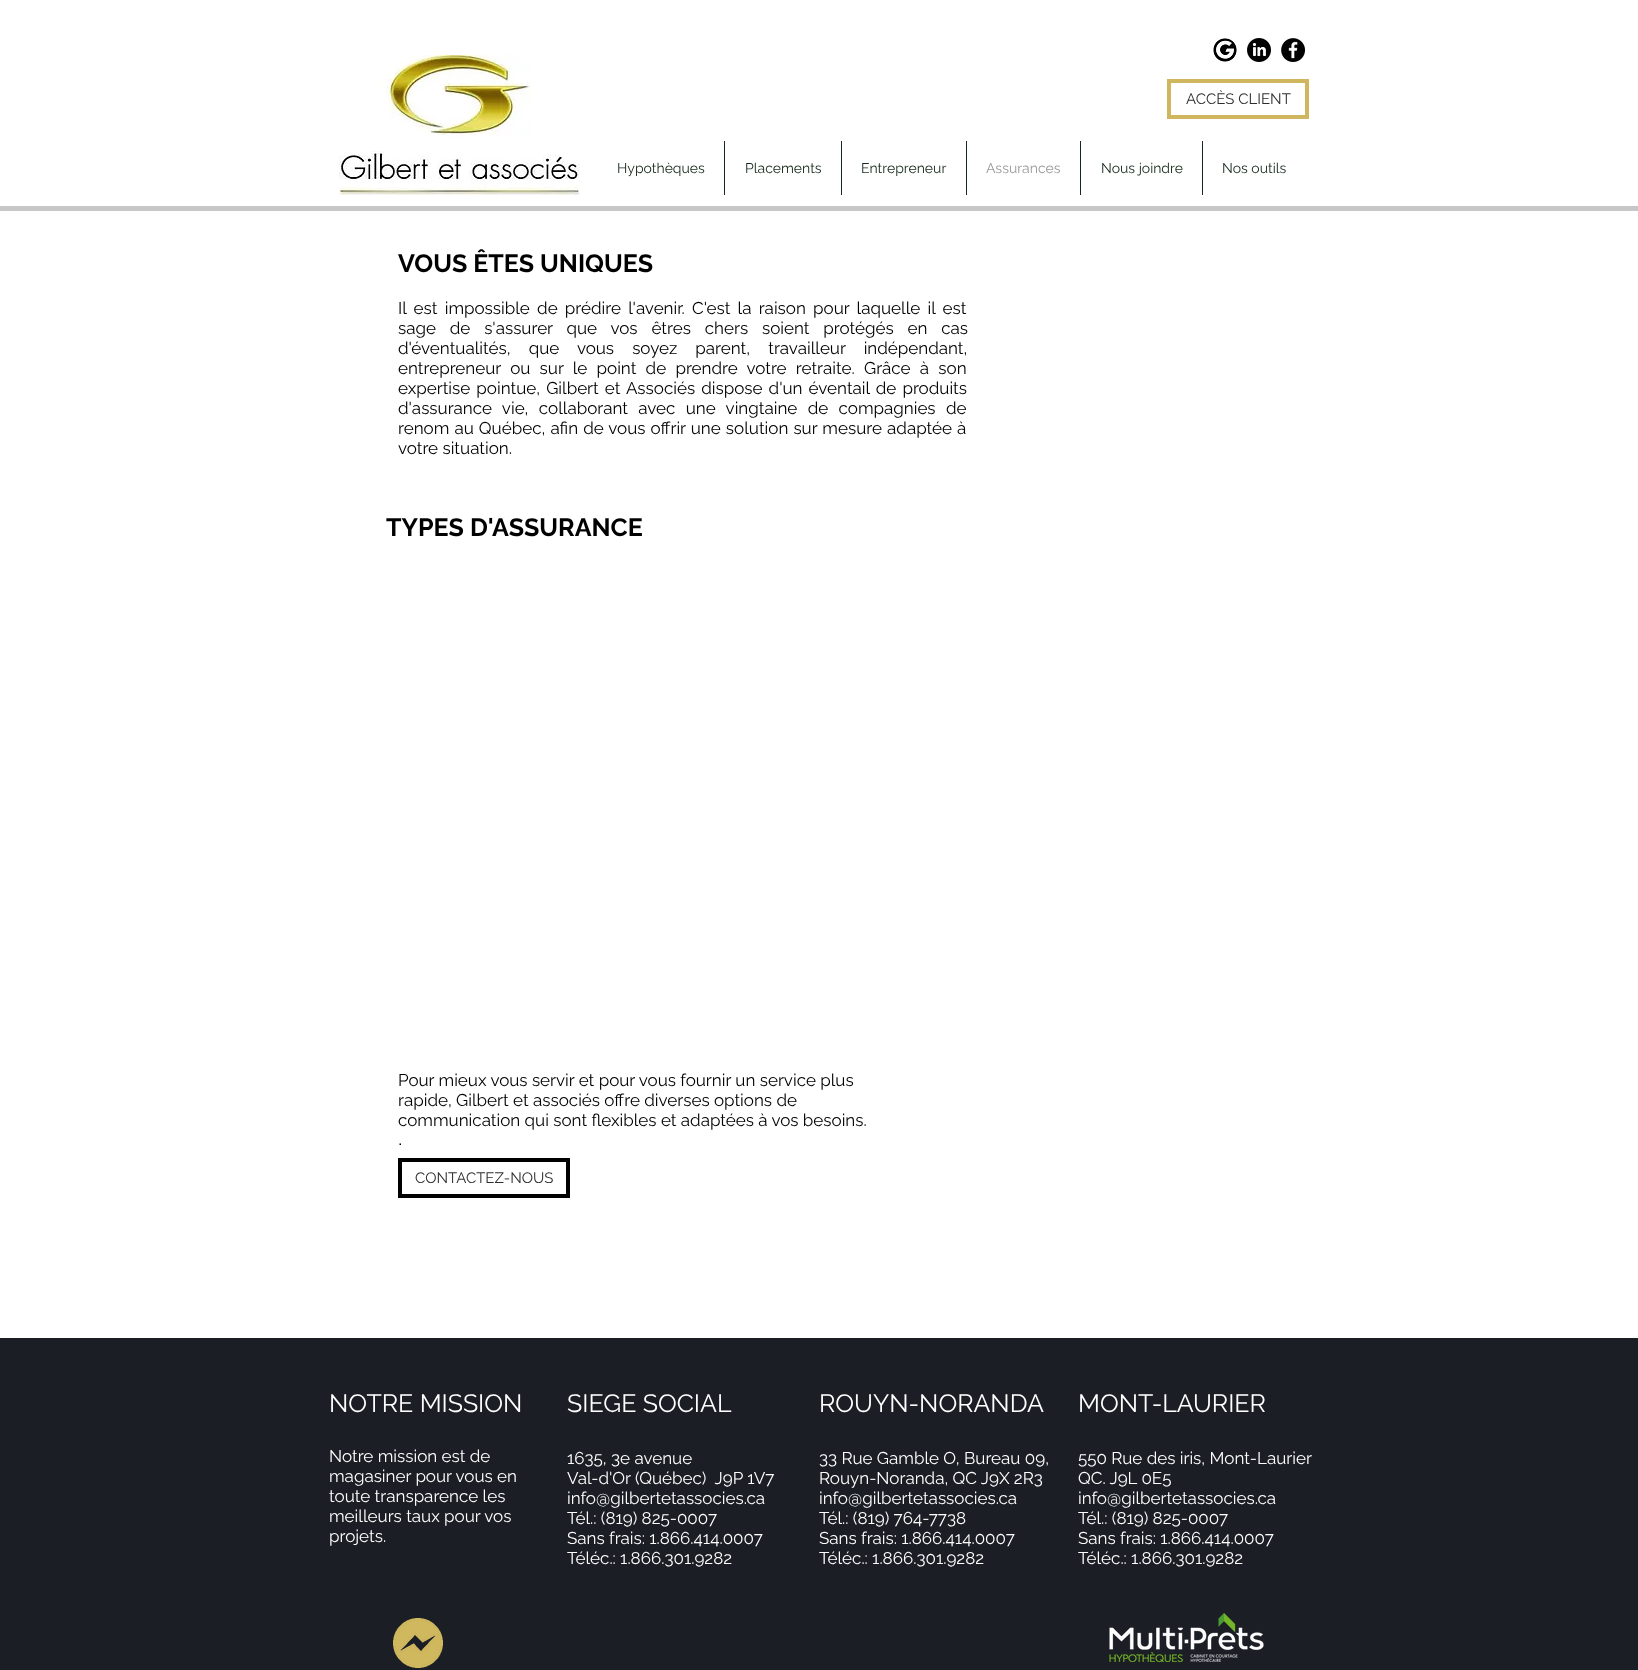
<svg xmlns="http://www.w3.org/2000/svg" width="1638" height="1670">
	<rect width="100%" height="100%" fill="#FFFFFF" />
	<image x="1213" y="38" width="24" height="24" href="assets/img1.png" />
	<image x="1247" y="38" width="24" height="24" href="assets/img2.png" />
	<image x="1281" y="38" width="24" height="24" href="assets/img3.png" />
	<image x="339" y="55" width="241" height="140" href="assets/img4.png" />
	<rect x="1169" y="81" width="138" height="36" fill="none" stroke="#CFB65F" stroke-width="4" />
	<text x="1186" y="104" font-family="Raleway" font-size="15" fill="#2F2E2E">ACCÈS CLIENT</text>
	<text x="617" y="173" font-family="Raleway" font-size="14" fill="#15291B">Hypothèques</text>
	<rect x="724" y="141" width="1" height="54" fill="#15291B" />
	<text x="745" y="173" font-family="Raleway" font-size="14" fill="#15291B">Placements</text>
	<rect x="841" y="141" width="1" height="54" fill="#15291B" />
	<text x="861" y="173" font-family="Raleway" font-size="14" fill="#15291B">Entrepreneur</text>
	<rect x="966" y="141" width="1" height="54" fill="#15291B" />
	<text x="986" y="173" font-family="Raleway" font-size="14" fill="#999997">Assurances</text>
	<rect x="1080" y="141" width="1" height="54" fill="#15291B" />
	<text x="1101" y="173" font-family="Raleway" font-size="14" fill="#15291B">Nous joindre</text>
	<rect x="1202" y="141" width="1" height="54" fill="#15291B" />
	<text x="1222" y="173" font-family="Raleway" font-size="14" fill="#15291B">Nos outils</text>
	<rect x="0" y="206" width="1638" height="5" fill="#C7C7C7" />
	<text x="398" y="272" font-family="Raleway" font-size="25" font-weight="700" fill="#000000">VOUS ÊTES UNIQUES</text>
	<g font-family="Raleway" font-size="17" fill="#000000">
		<text x="398" y="314" word-spacing="2.9">Il est impossible de prédire l'avenir. C'est la raison pour laquelle il est</text>
		<text x="398" y="334" word-spacing="9.5">sage de s'assurer que vos êtres chers soient protégés en cas</text>
		<text x="398" y="354" word-spacing="13.75">d'éventualités, que vous soyez parent, travailleur indépendant,</text>
		<text x="398" y="374" word-spacing="4.9">entrepreneur ou sur le point de prendre votre retraite. Grâce à son</text>
		<text x="398" y="394" word-spacing="1.75">expertise pointue, Gilbert et Associés dispose d'un éventail de produits</text>
		<text x="398" y="414" word-spacing="6">d'assurance vie, collaborant avec une vingtaine de compagnies de</text>
		<text x="398" y="434" word-spacing="0.75">renom au Québec, afin de vous offrir une solution sur mesure adaptée à</text>
		<text x="398" y="454">votre situation.</text>
	</g>
	<text x="386" y="536" font-family="Raleway" font-size="25" font-weight="700" fill="#000000">TYPES D'ASSURANCE</text>
	<g font-family="Raleway" font-size="17" fill="#000000">
		<text x="398" y="1086">Pour mieux vous servir et pour vous fournir un service plus</text>
		<text x="398" y="1106">rapide, Gilbert et associés offre diverses options de</text>
		<text x="398" y="1126">communication qui sont flexibles et adaptées à vos besoins.</text>
	</g>
	<text x="398" y="1145" font-family="'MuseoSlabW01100'" font-size="17" font-weight="700" fill="#000000">.</text>
	<rect x="400" y="1160" width="168" height="36" fill="none" stroke="#000000" stroke-width="4" />
	<text x="415" y="1183" font-family="Raleway" font-size="15" fill="#2F2E2E">CONTACTEZ-NOUS</text>
	<rect x="0" y="1338" width="1638" height="332" fill="#1C1E26" />
	<text x="329" y="1412" font-family="Raleway" font-size="25" fill="#FFFFFF">NOTRE MISSION</text>
	<g font-family="Raleway" font-size="17" fill="#FFFFFF">
		<text x="329" y="1462">Notre mission est de</text>
		<text x="329" y="1482">magasiner pour vous en</text>
		<text x="329" y="1502">toute transparence les</text>
		<text x="329" y="1522">meilleurs taux pour vos</text>
		<text x="329" y="1542">projets.</text>
	</g>
	<text x="567" y="1412" font-family="Raleway" font-size="25" fill="#FFFFFF">SIEGE SOCIAL</text>
	<g font-family="Raleway" font-size="17" fill="#FFFFFF">
		<text x="567" y="1464">1635, 3e avenue</text>
		<text x="567" y="1484" xml:space="preserve">Val-d'Or (Québec)  J9P 1V7</text>
		<text x="567" y="1504">info@gilbertetassocies.ca</text>
		<text x="567" y="1524">Tél.: (819) 825-0007</text>
		<text x="567" y="1544">Sans frais: 1.866.414.0007</text>
		<text x="567" y="1564">Téléc.: 1.866.301.9282</text>
	</g>
	<text x="819" y="1412" font-family="Raleway" font-size="25" fill="#FFFFFF">ROUYN-NORANDA</text>
	<g font-family="Raleway" font-size="17" fill="#FFFFFF">
		<text x="819" y="1464">33 Rue Gamble O, Bureau 09,</text>
		<text x="819" y="1484">Rouyn-Noranda, QC J9X 2R3</text>
		<text x="819" y="1504">info@gilbertetassocies.ca</text>
		<text x="819" y="1524">Tél.: (819) 764-7738</text>
		<text x="819" y="1544">Sans frais: 1.866.414.0007</text>
		<text x="819" y="1564">Téléc.: 1.866.301.9282</text>
	</g>
	<text x="1078" y="1412" font-family="Raleway" font-size="25" fill="#FFFFFF">MONT-LAURIER</text>
	<g font-family="Raleway" font-size="17" fill="#FFFFFF">
		<text x="1078" y="1464">550 Rue des iris, Mont-Laurier</text>
		<text x="1078" y="1484">QC. J9L 0E5</text>
		<text x="1078" y="1504">info@gilbertetassocies.ca</text>
		<text x="1078" y="1524">Tél.: (819) 825-0007</text>
		<text x="1078" y="1544">Sans frais: 1.866.414.0007</text>
		<text x="1078" y="1564">Téléc.: 1.866.301.9282</text>
	</g>
	<image x="393" y="1618" width="50" height="50" href="assets/img5.png" />
	<image x="1109" y="1613" width="155" height="49" href="assets/img6.png" />
</svg>
